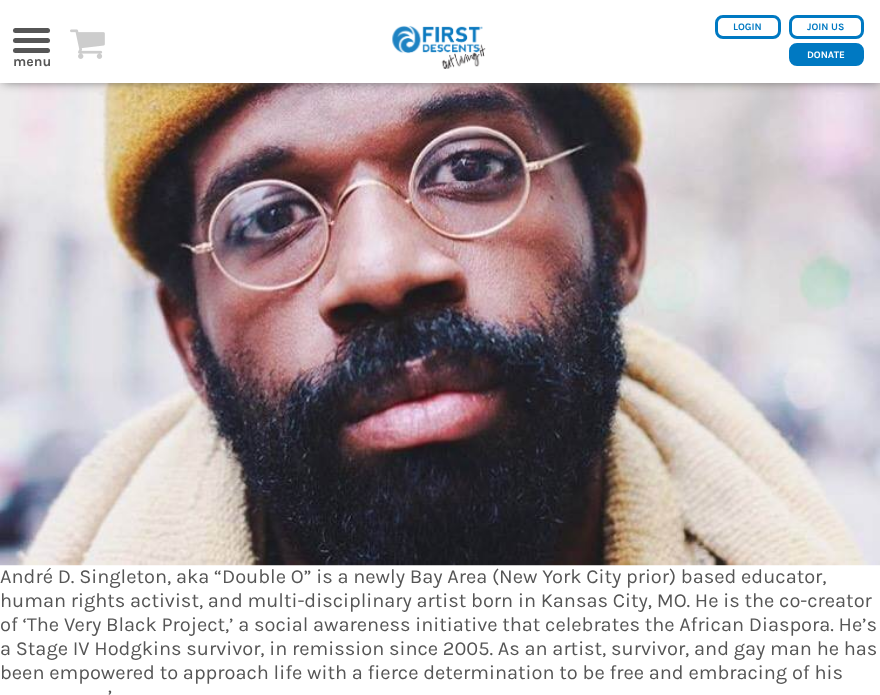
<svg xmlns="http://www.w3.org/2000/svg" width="880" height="695">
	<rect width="100%" height="100%" fill="#FFFFFF" />
	<image x="0" y="83" width="880" height="483" href="assets/img3.png" />
	<rect x="3" y="3" width="875" height="78" fill="#565656" filter="blur(6px)" />
	<rect x="0" y="0" width="880" height="83" fill="#FFFFFF" />
	<image x="70" y="29" width="35" height="30" href="assets/img1.png" />
	<image x="392" y="25" width="94" height="44" href="assets/img2.png" />
	<rect x="716.5" y="16.5" width="63" height="21" rx="6.5" fill="none" stroke="#0079C2" stroke-width="3" />
	<text x="733" y="30" font-family="Karla" font-size="10" font-weight="700" fill="#0079C2">LOGIN</text>
	<rect x="790.5" y="16.5" width="72" height="21" rx="6.5" fill="none" stroke="#0079C2" stroke-width="3" />
	<text x="807" y="30" font-family="Karla" font-size="10" font-weight="700" fill="#0079C2">JOIN US</text>
	<rect x="790.5" y="44.5" width="72" height="20" rx="6.5" fill="#0079C2" stroke="#0079C2" stroke-width="3" />
	<text x="807" y="58" font-family="Karla" font-size="10" font-weight="700" fill="#FFFFFF">DONATE</text>
	<rect x="13" y="28" width="37" height="5" rx="2.5" fill="#565656" />
	<rect x="13" y="38" width="37" height="5" rx="2.5" fill="#565656" />
	<rect x="13" y="48" width="37" height="5" rx="2.5" fill="#565656" />
	<text x="13" y="66" font-family="Karla" font-size="14" font-weight="700" fill="#565656">menu</text>
	<g font-family="Karla" font-size="20" fill="#565656">
		<text x="0" y="583">André D. Singleton, aka “Double O” is a newly Bay Area (New York City prior) based educator,</text>
		<text x="0" y="607">human rights activist, and multi-disciplinary artist born in Kansas City, MO. He is the co-creator</text>
		<text x="0" y="631">of ‘The Very Black Project,’ a social awareness initiative that celebrates the African Diaspora. He’s</text>
		<text x="0" y="655">a Stage IV Hodgkins survivor, in remission since 2005. As an artist, survivor, and gay man he has</text>
		<text x="0" y="679">been empowered to approach life with a fierce determination to be free and embracing of his</text>
		<text x="108" y="703">’</text>
	</g>
</svg>
